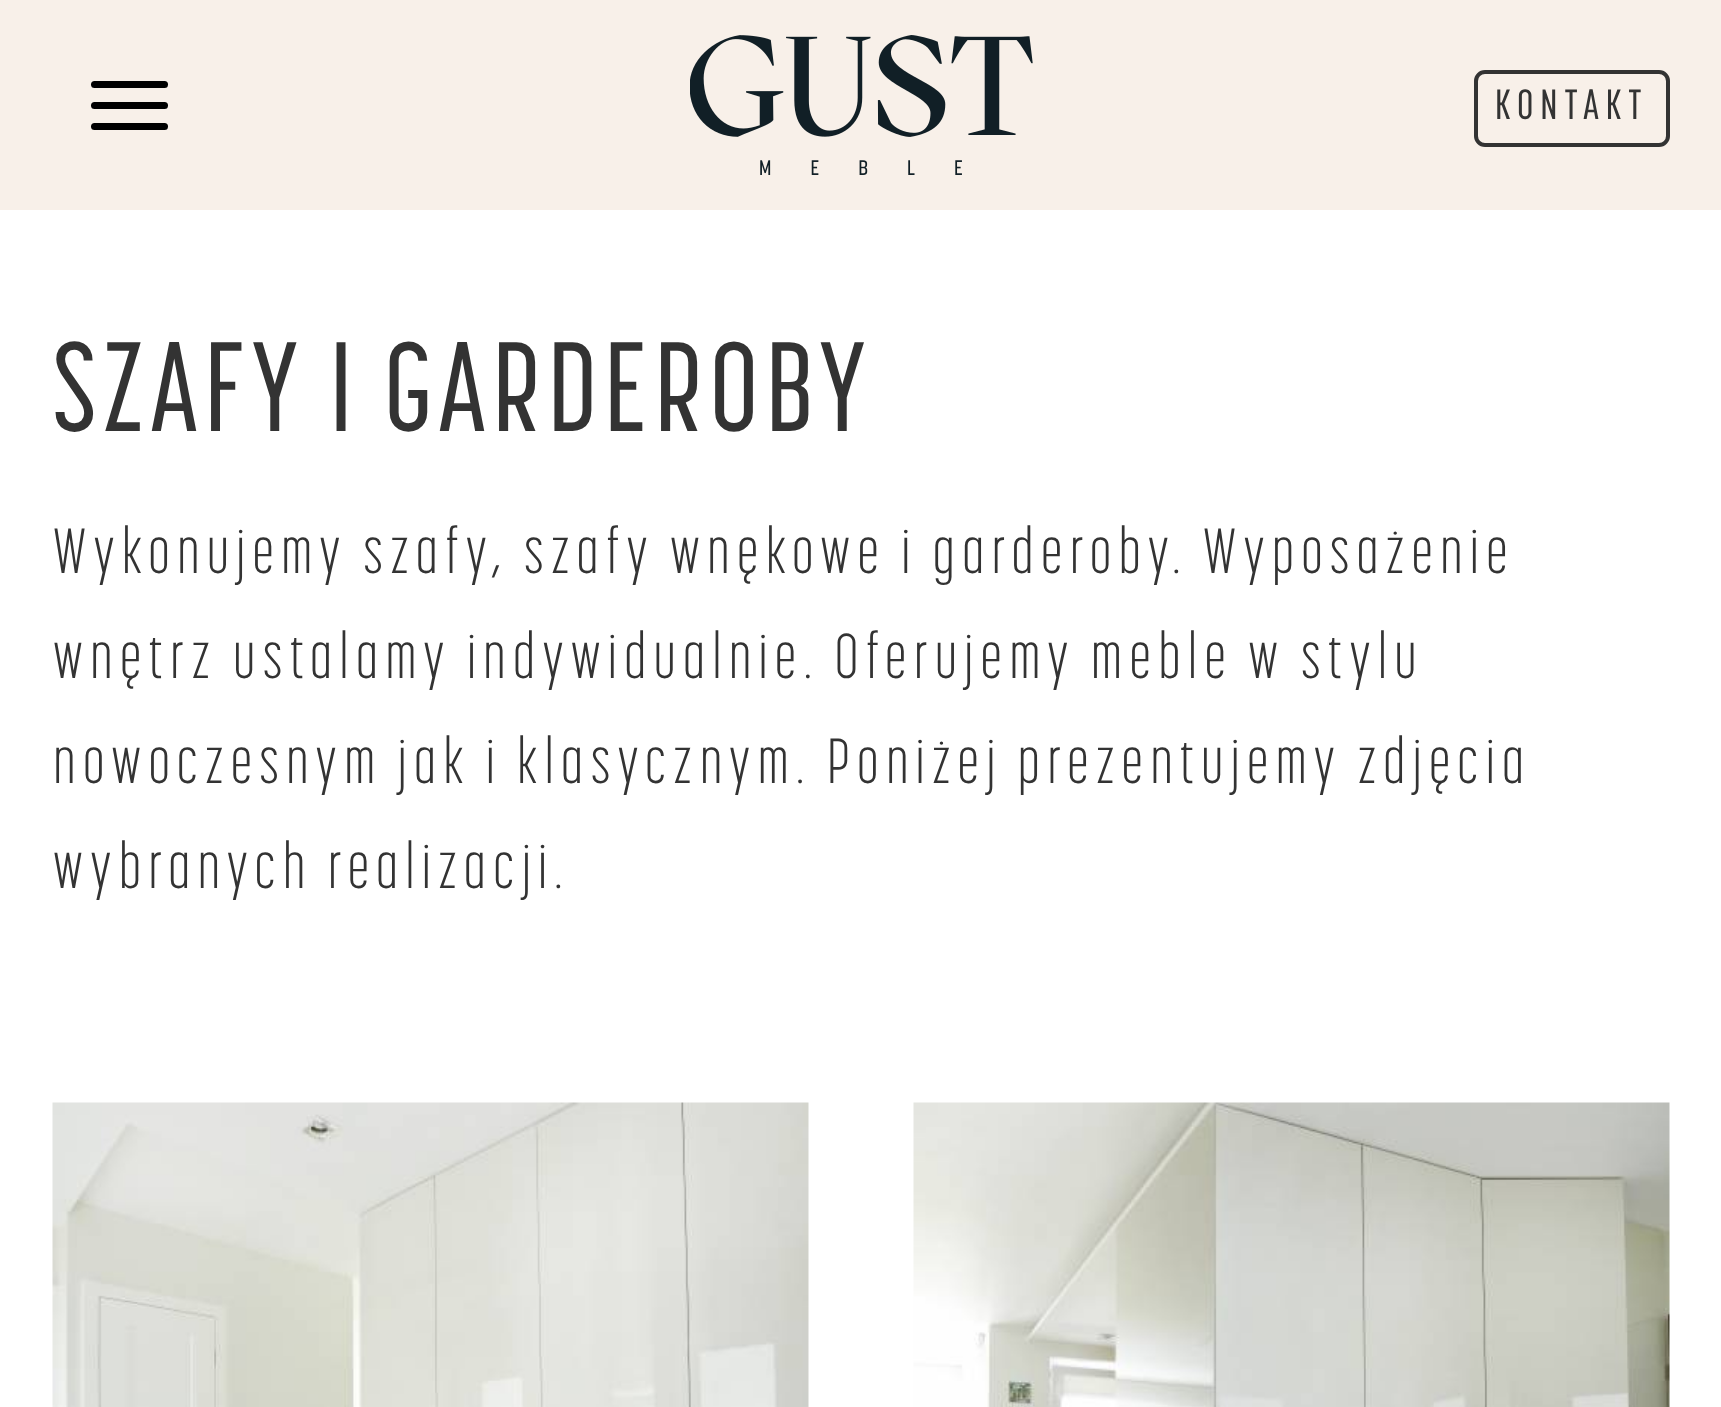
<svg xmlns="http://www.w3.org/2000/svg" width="1721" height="1407">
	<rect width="100%" height="100%" fill="#FFFFFF" />
	<rect x="0" y="0" width="1721" height="210" fill="#F8F0E9" />
	<rect x="91" y="81" width="77" height="7" rx="3.5" fill="#000000" />
	<rect x="91" y="102" width="77" height="7" rx="3.5" fill="#000000" />
	<rect x="91" y="123" width="77" height="7" rx="3.5" fill="#000000" />
	<image x="690" y="35" width="343" height="140" href="assets/img1.png" />
	<rect x="1476" y="72" width="192" height="73" rx="9" fill="none" stroke="#333333" stroke-width="4" />
	<text x="1495" y="119" font-family="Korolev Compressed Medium" font-size="42" font-weight="500" letter-spacing="7" fill="#333333">KONTAKT</text>
	<text x="53" y="431" font-family="Korolev Compressed Medium" font-size="126" font-weight="500" letter-spacing="7" fill="#333333">SZAFY I GARDEROBY</text>
	<g font-family="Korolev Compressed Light" font-size="63" font-weight="300" letter-spacing="7" fill="#333333">
		<text x="53" y="573">Wykonujemy szafy, szafy wnękowe i garderoby. Wyposażenie</text>
		<text x="53" y="678">wnętrz ustalamy indywidualnie. Oferujemy meble w stylu</text>
		<text x="53" y="783">nowoczesnym jak i klasycznym. Poniżej prezentujemy zdjęcia</text>
		<text x="53" y="888">wybranych realizacji.</text>
	</g>
	<image x="52" y="1102" width="757" height="305" href="assets/img2.png" />
	<image x="913" y="1102" width="757" height="305" href="assets/img3.png" />
</svg>
